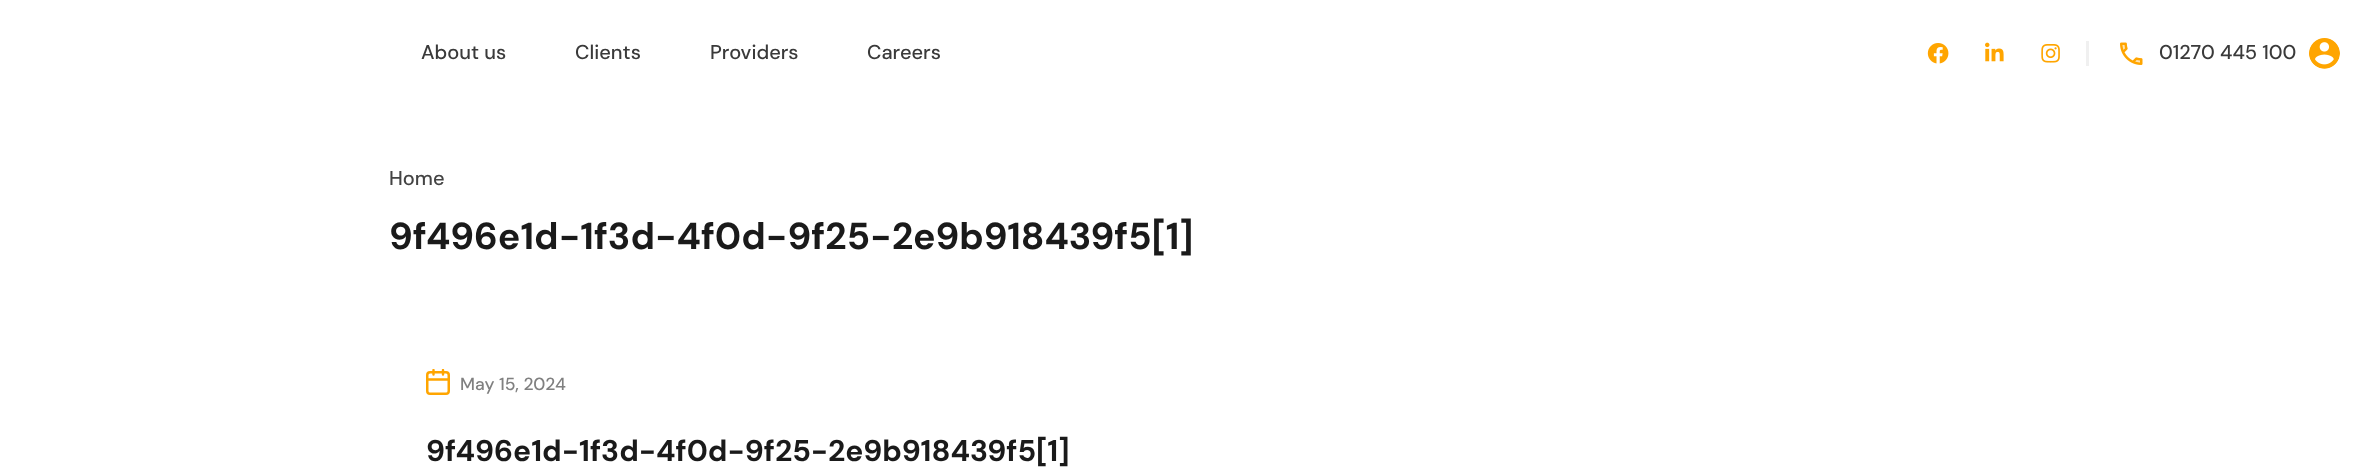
<svg xmlns="http://www.w3.org/2000/svg" width="2377" height="468">
	<defs>
		<clipPath id="clip1"><rect x="426" y="369" width="24" height="26" /></clipPath>
	</defs>
	<rect width="100%" height="100%" fill="#FFFFFF" />
	<g font-family="DM Sans" font-size="20" font-weight="500" fill="#3A3A3A">
		<text x="421" y="59">About us</text>
		<text x="575" y="59">Clients</text>
		<text x="710" y="59">Providers</text>
		<text x="867" y="59">Careers</text>
	</g>
	<image x="1927" y="43" width="22" height="21" href="assets/img1.png" />
	<image x="1985" y="42" width="19" height="20" href="assets/img2.png" />
	<image x="2041" y="44" width="19" height="19" href="assets/img3.png" />
	<rect x="2086" y="41" width="3" height="25" fill="#F0F0F0" />
	<image x="2120" y="42" width="23" height="23" href="assets/img4.png" />
	<text x="2159" y="59" font-family="DM Sans" font-size="20" font-weight="500" fill="#3A3A3A">01270 445 100</text>
	<image x="2309" y="38" width="31" height="31" href="assets/img5.png" />
	<text x="389" y="185" font-family="DM Sans" font-size="20" font-weight="500" fill="#444444">Home</text>
	<text x="389" y="249" font-family="DM Sans" font-size="37.5" font-weight="700" fill="#1A1A1A">9f496e1d-1f3d-4f0d-9f25-2e9b918439f5[1]</text>
	<rect x="427.25" y="372.25" width="21.5" height="21.5" rx="2.75" fill="none" stroke="#FFA500" stroke-width="2.5" />
	<g clip-path="url(#clip1)">
		<path d="M443 370V374.5M433.5 370V374.5M427.5 379.5H449" fill="none" stroke="#FFA500" stroke-width="2.4" stroke-linecap="round" stroke-linejoin="round" />
	</g>
	<text x="460" y="390" font-family="DM Sans" font-size="17.5" font-weight="500" fill="#808080">May 15, 2024</text>
	<text x="426" y="461" font-family="DM Sans" font-size="30" font-weight="700" fill="#1A1A1A">9f496e1d-1f3d-4f0d-9f25-2e9b918439f5[1]</text>
</svg>
